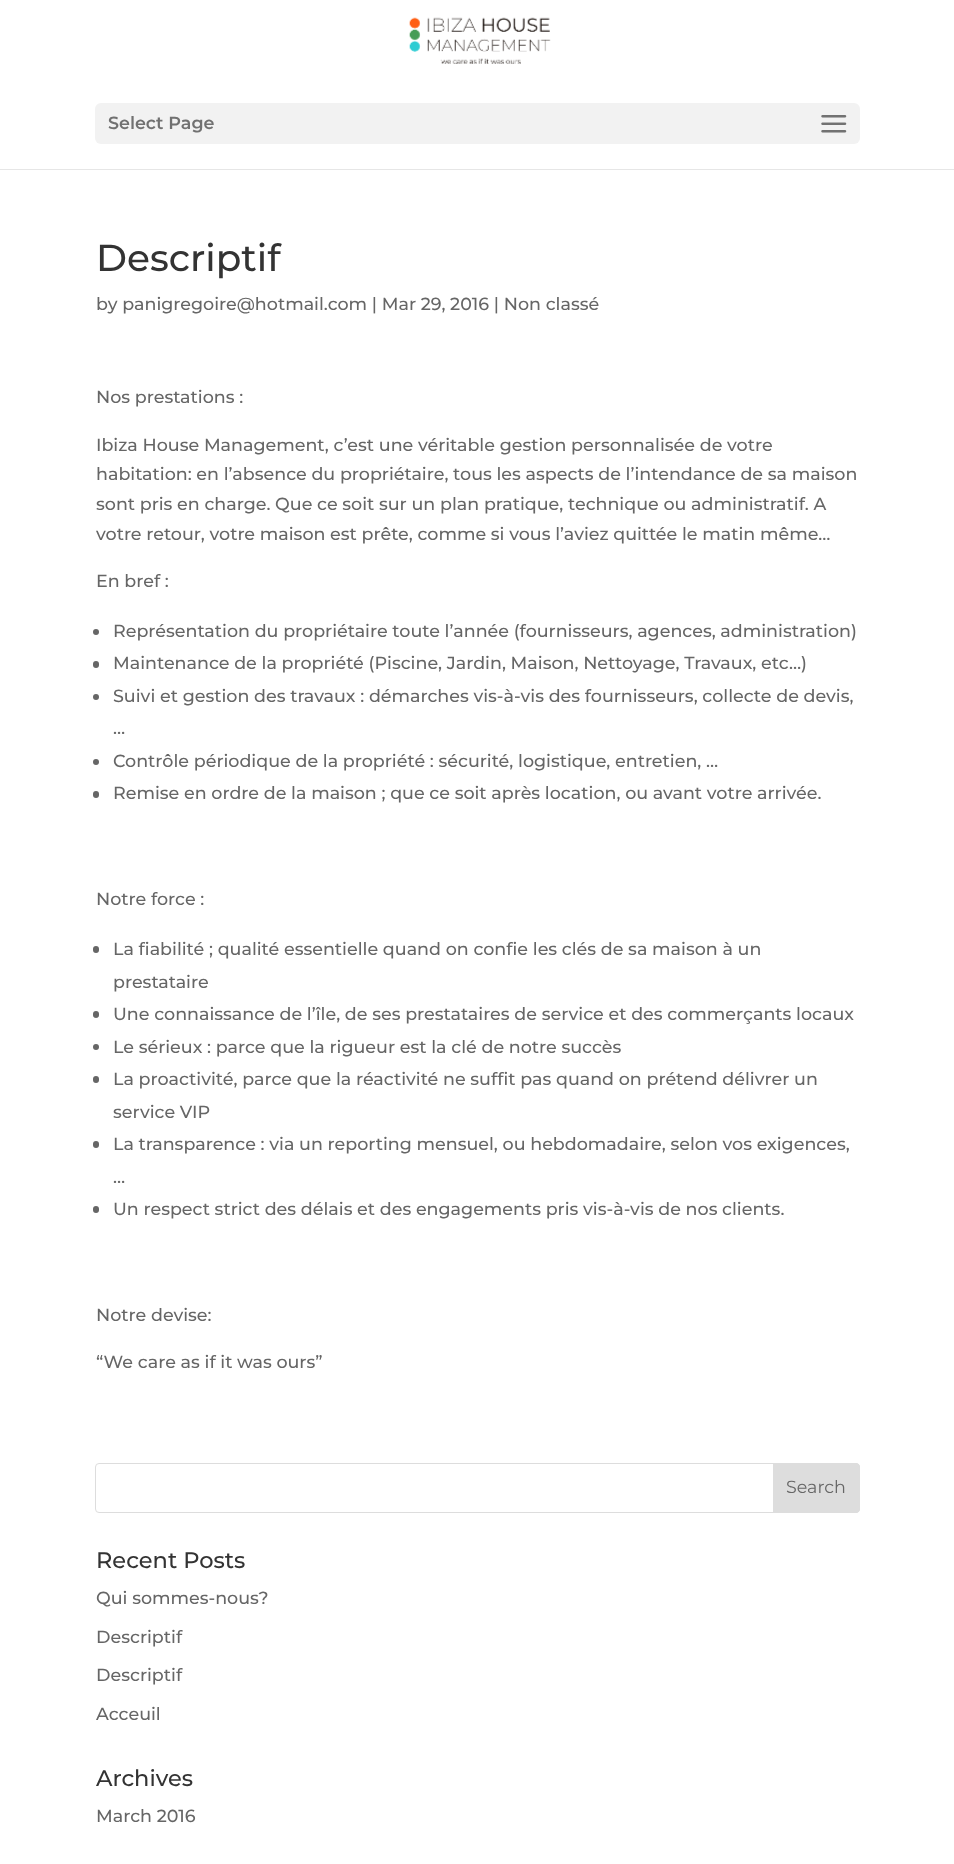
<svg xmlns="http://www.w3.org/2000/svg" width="954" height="1864">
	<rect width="100%" height="100%" fill="#FFFFFF" />
	<rect x="0" y="169" width="954" height="1" fill="#E6E6E6" />
	<image x="409" y="17" width="142" height="47" href="assets/img1.png" />
	<rect x="95" y="103" width="765" height="41" rx="6" fill="#F2F2F2" />
	<text x="108" y="129" font-family="'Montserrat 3'" font-size="17.5" font-weight="100" fill="#717171">Select Page</text>
	<image x="821" y="115" width="26" height="18" href="assets/img2.png" />
	<text x="96" y="271" font-family="Montserrat" font-size="37.5" font-weight="100" fill="#333333">Descriptif</text>
	<g font-family="Montserrat" font-size="17.5" font-weight="100" fill="#666666">
		<text x="96" y="310">by panigregoire@hotmail.com | Mar 29, 2016 | Non classé</text>
		<text x="96" y="403">Nos prestations :</text>
		<text x="96" y="451">Ibiza House Management, c’est une véritable gestion personnalisée de votre</text>
		<text x="96" y="480">habitation: en l’absence du propriétaire, tous les aspects de l’intendance de sa maison</text>
		<text x="96" y="510">sont pris en charge. Que ce soit sur un plan pratique, technique ou administratif. A</text>
		<text x="96" y="540">votre retour, votre maison est prête, comme si vous l’aviez quittée le matin même…</text>
		<text x="96" y="587">En bref :</text>
	</g>
	<circle cx="96" cy="632" r="3" fill="#666666" />
	<text x="113" y="637" font-family="Montserrat" font-size="17.5" font-weight="100" fill="#666666">Représentation du propriétaire toute l’année (fournisseurs, agences, administration)</text>
	<rect x="93" y="661" width="6" height="7" rx="3" fill="#666666" />
	<text x="113" y="669" font-family="Montserrat" font-size="17.5" font-weight="100" fill="#666666">Maintenance de la propriété (Piscine, Jardin, Maison, Nettoyage, Travaux, etc…)</text>
	<circle cx="96" cy="697" r="3" fill="#666666" />
	<g font-family="Montserrat" font-size="17.5" font-weight="100" fill="#666666">
		<text x="113" y="702">Suivi et gestion des travaux : démarches vis-à-vis des fournisseurs, collecte de devis,</text>
		<text x="113" y="734">…</text>
	</g>
	<circle cx="96" cy="762" r="3" fill="#666666" />
	<text x="113" y="767" font-family="Montserrat" font-size="17.5" font-weight="100" fill="#666666">Contrôle périodique de la propriété : sécurité, logistique, entretien, …</text>
	<rect x="93" y="791" width="6" height="7" rx="3" fill="#666666" />
	<g font-family="Montserrat" font-size="17.5" font-weight="100" fill="#666666">
		<text x="113" y="799">Remise en ordre de la maison ; que ce soit après location, ou avant votre arrivée.</text>
		<text x="96" y="905">Notre force :</text>
	</g>
	<rect x="93" y="946" width="6" height="7" rx="3" fill="#666666" />
	<g font-family="Montserrat" font-size="17.5" font-weight="100" fill="#666666">
		<text x="113" y="955">La fiabilité ; qualité essentielle quand on confie les clés de sa maison à un</text>
		<text x="113" y="988">prestataire</text>
	</g>
	<rect x="93" y="1011" width="6" height="7" rx="3" fill="#666666" />
	<text x="113" y="1020" font-family="Montserrat" font-size="17.5" font-weight="100" fill="#666666">Une connaissance de l’île, de ses prestataires de service et des commerçants locaux</text>
	<circle cx="96" cy="1047" r="3" fill="#666666" />
	<text x="113" y="1053" font-family="Montserrat" font-size="17.5" font-weight="100" fill="#666666">Le sérieux : parce que la rigueur est la clé de notre succès</text>
	<rect x="93" y="1076" width="6" height="7" rx="3" fill="#666666" />
	<g font-family="Montserrat" font-size="17.5" font-weight="100" fill="#666666">
		<text x="113" y="1085">La proactivité, parce que la réactivité ne suffit pas quand on prétend délivrer un</text>
		<text x="113" y="1118">service VIP</text>
	</g>
	<rect x="93" y="1141" width="6" height="7" rx="3" fill="#666666" />
	<g font-family="Montserrat" font-size="17.5" font-weight="100" fill="#666666">
		<text x="113" y="1150">La transparence : via un reporting mensuel, ou hebdomadaire, selon vos exigences,</text>
		<text x="113" y="1183">…</text>
	</g>
	<rect x="93" y="1206" width="6" height="7" rx="3" fill="#666666" />
	<g font-family="Montserrat" font-size="17.5" font-weight="100" fill="#666666">
		<text x="113" y="1215">Un respect strict des délais et des engagements pris vis-à-vis de nos clients.</text>
		<text x="96" y="1321">Notre devise:</text>
		<text x="96" y="1368">“We care as if it was ours”</text>
	</g>
	<rect x="95.5" y="1463.5" width="764" height="49" rx="3.5" fill="none" stroke="#DDDDDD" />
	<path d="M773.5 1463.5H856C858 1463.5 859.5 1465 859.5 1467V1509C859.5 1511 858 1512.5 856 1512.5H773.5Z" fill="#DDDDDD" stroke="#DDDDDD" />
	<text x="786" y="1493" font-family="'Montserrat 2'" font-size="17.5" font-weight="100" fill="#666666">Search</text>
	<text x="96" y="1568" font-family="Montserrat" font-size="22.5" font-weight="100" fill="#333333">Recent Posts</text>
	<g font-family="Montserrat" font-size="17.5" font-weight="100" fill="#666666">
		<text x="96" y="1604">Qui sommes-nous?</text>
		<text x="96" y="1643">Descriptif</text>
		<text x="96" y="1681">Descriptif</text>
		<text x="96" y="1720">Acceuil</text>
	</g>
	<text x="96" y="1786" font-family="Montserrat" font-size="22.5" font-weight="100" fill="#333333">Archives</text>
	<text x="96" y="1822" font-family="Montserrat" font-size="17.5" font-weight="100" fill="#666666">March 2016</text>
</svg>
